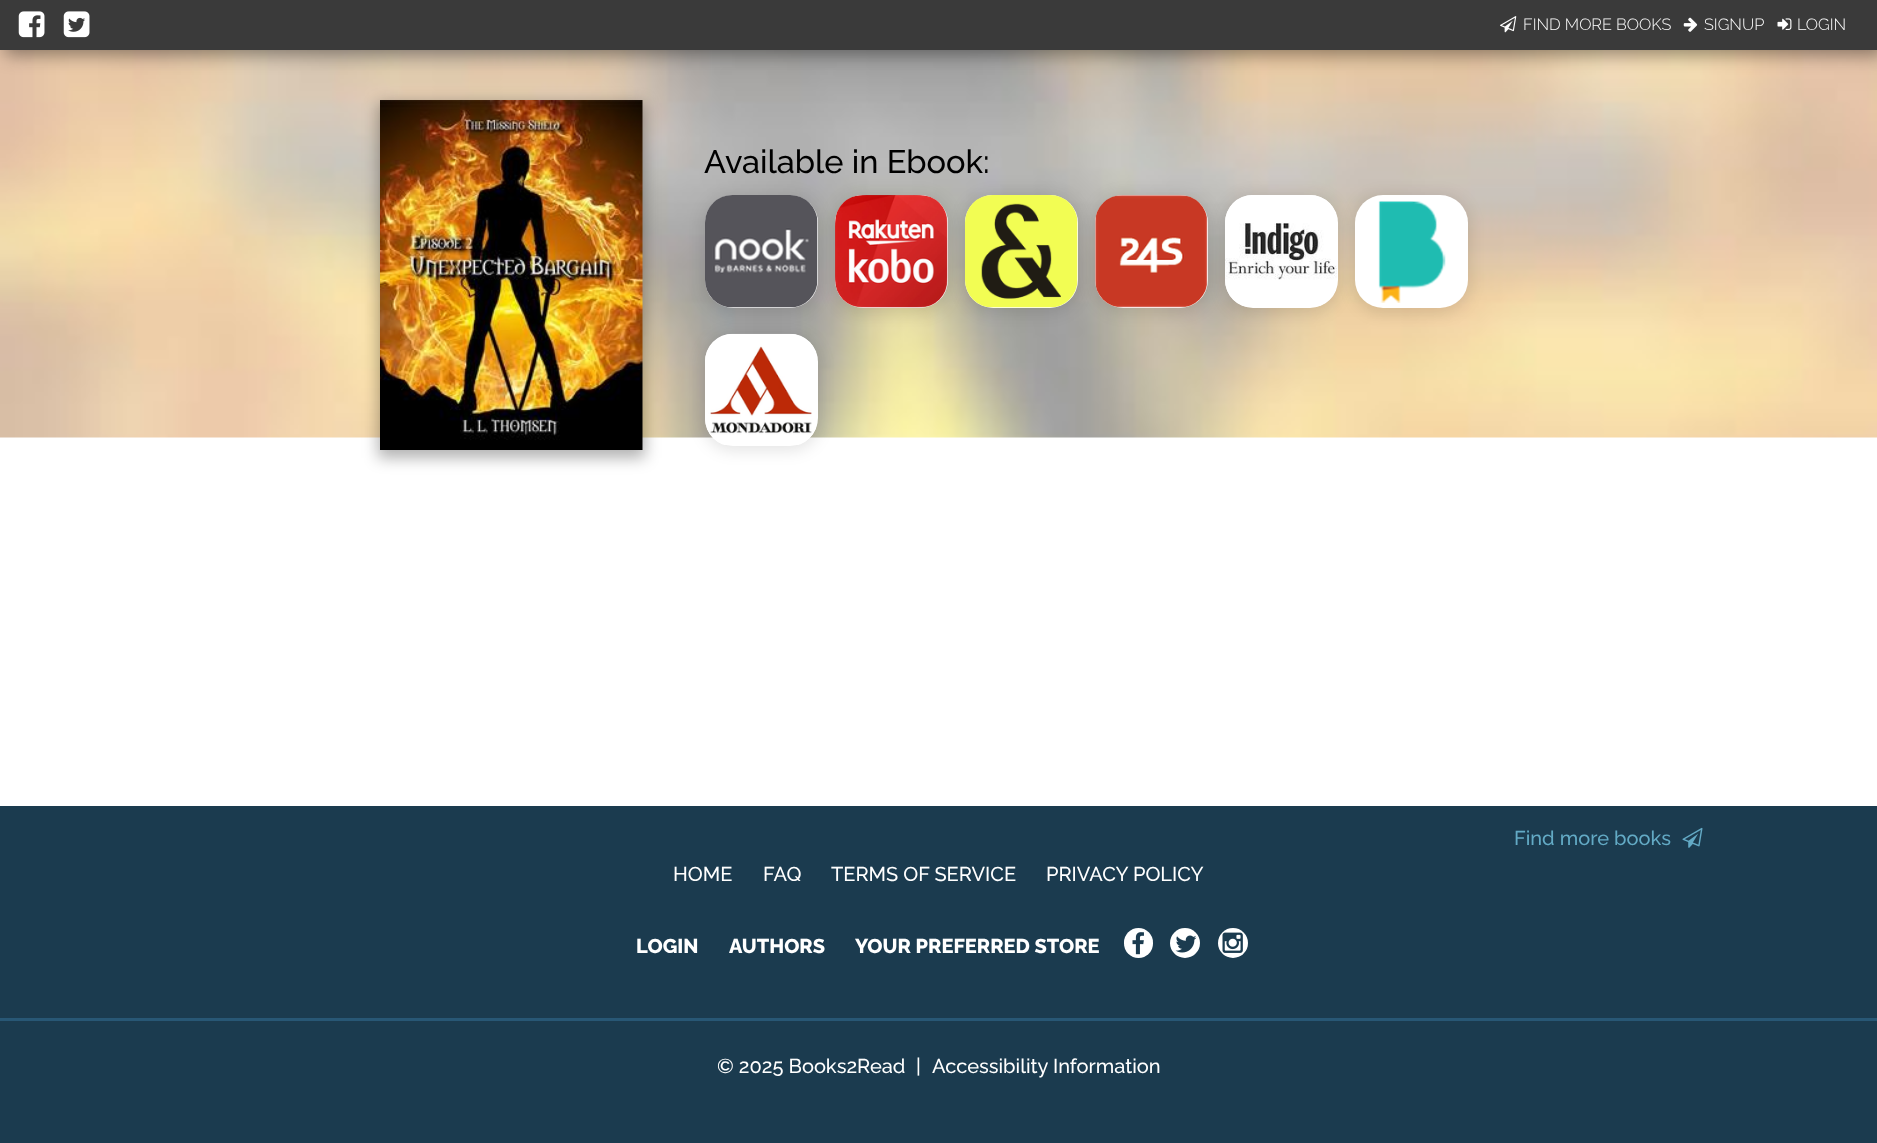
<svg xmlns="http://www.w3.org/2000/svg" width="1877" height="1143">
	<rect width="100%" height="100%" fill="#FFFFFF" />
	<image x="0" y="50" width="1877" height="388" href="assets/img1.png" />
	<rect x="5" y="5" width="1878" height="50" fill="#000000" fill-opacity="0.4" filter="blur(9px)" />
	<rect x="0" y="0" width="1877" height="50" fill="#3A3A3A" />
	<image x="18" y="11" width="27" height="27" href="assets/img2.png" />
	<image x="63" y="11" width="27" height="27" href="assets/img3.png" />
	<image x="1500" y="16" width="17" height="17" href="assets/img4.png" />
	<text x="1523" y="30" font-family="Raleway" font-size="16.25" font-weight="300" fill="#FFFFFF">FIND MORE BOOKS</text>
	<image x="1683" y="17" width="15" height="15" href="assets/img5.png" />
	<text x="1704" y="30" font-family="Raleway" font-size="16.25" font-weight="300" fill="#FFFFFF">SIGNUP</text>
	<image x="1777" y="18" width="15" height="12" href="assets/img6.png" />
	<text x="1797" y="30" font-family="Raleway" font-size="16.25" font-weight="300" fill="#FFFFFF">LOGIN</text>
	<rect x="378" y="103" width="267" height="355" fill="#000000" fill-opacity="0.3" filter="blur(7.5px)" />
	<image x="380" y="100" width="263" height="350" href="assets/img7.png" />
	<rect x="703" y="195" width="117" height="118" rx="30" fill="#000000" fill-opacity="0.1" filter="blur(7.5px)" />
	<rect x="705" y="195" width="113" height="113" rx="28" fill="#FFFFFF" />
	<image x="705" y="195" width="113" height="113" href="assets/img8.png" />
	<rect x="833" y="195" width="117" height="118" rx="30" fill="#000000" fill-opacity="0.1" filter="blur(7.5px)" />
	<rect x="835" y="195" width="113" height="113" rx="28" fill="#FFFFFF" />
	<image x="835" y="195" width="113" height="113" href="assets/img9.png" />
	<rect x="963" y="195" width="117" height="118" rx="30" fill="#000000" fill-opacity="0.1" filter="blur(7.5px)" />
	<text x="704" y="173" font-family="Raleway" font-size="32.5" font-weight="500" fill="#000000">Available in Ebook:</text>
	<rect x="965" y="195" width="113" height="113" rx="28" fill="#FFFFFF" />
	<image x="965" y="195" width="113" height="113" href="assets/img10.png" />
	<rect x="1093" y="195" width="117" height="118" rx="30" fill="#000000" fill-opacity="0.1" filter="blur(7.5px)" />
	<rect x="1095" y="195" width="113" height="113" rx="28" fill="#FFFFFF" />
	<image x="1095" y="195" width="113" height="113" href="assets/img11.png" />
	<rect x="1223" y="195" width="117" height="118" rx="30" fill="#000000" fill-opacity="0.1" filter="blur(7.5px)" />
	<rect x="1225" y="195" width="113" height="113" rx="28" fill="#FFFFFF" />
	<image x="1225" y="195" width="112" height="112" href="assets/img12.png" />
	<rect x="1353" y="195" width="117" height="118" rx="30" fill="#000000" fill-opacity="0.1" filter="blur(7.5px)" />
	<rect x="1355" y="195" width="113" height="113" rx="28" fill="#FFFFFF" />
	<image x="1378" y="201" width="68" height="102" href="assets/img13.png" />
	<rect x="703" y="334" width="117" height="117" rx="30" fill="#000000" fill-opacity="0.1" filter="blur(7.5px)" />
	<rect x="705" y="334" width="113" height="112" rx="28" fill="#FFFFFF" />
	<image x="705" y="333" width="112" height="112" href="assets/img14.png" />
	<rect x="0" y="806" width="1877" height="337" fill="#1B3B4F" />
	<text x="1514" y="845" font-family="Raleway" font-size="20" font-weight="500" fill="#63AAC5">Find more books</text>
	<image x="1682" y="827" width="21" height="21" href="assets/img15.png" />
	<g font-family="Raleway" font-size="20" font-weight="500" fill="#FFFFFF">
		<text x="673" y="881">HOME</text>
		<text x="763" y="881">FAQ</text>
		<text x="831" y="881">TERMS OF SERVICE</text>
		<text x="1046" y="881">PRIVACY POLICY</text>
	</g>
	<g font-family="Raleway" font-size="20" font-weight="800" fill="#FFFFFF">
		<text x="636" y="953">LOGIN</text>
		<text x="729" y="953">AUTHORS</text>
		<text x="855" y="953">YOUR PREFERRED STORE</text>
	</g>
	<rect x="1124" y="928" width="29" height="30" rx="14.5" fill="#FFFFFF" />
	<image x="1132" y="932" width="12" height="23" href="assets/img16.png" />
	<circle cx="1185" cy="943" r="15" fill="#FFFFFF" />
	<image x="1175" y="935" width="22" height="18" href="assets/img17.png" />
	<circle cx="1233" cy="943" r="15" fill="#FFFFFF" />
	<image x="1222" y="932" width="21" height="21" href="assets/img18.png" />
	<rect x="0" y="1018" width="1877" height="3" fill="#285775" />
	<g font-family="Raleway" font-size="20" font-weight="500" fill="#FFFFFF">
		<text x="717" y="1073">© 2025 Books2Read</text>
		<text x="916" y="1073">|</text>
		<text x="932" y="1073">Accessibility Information</text>
	</g>
</svg>
